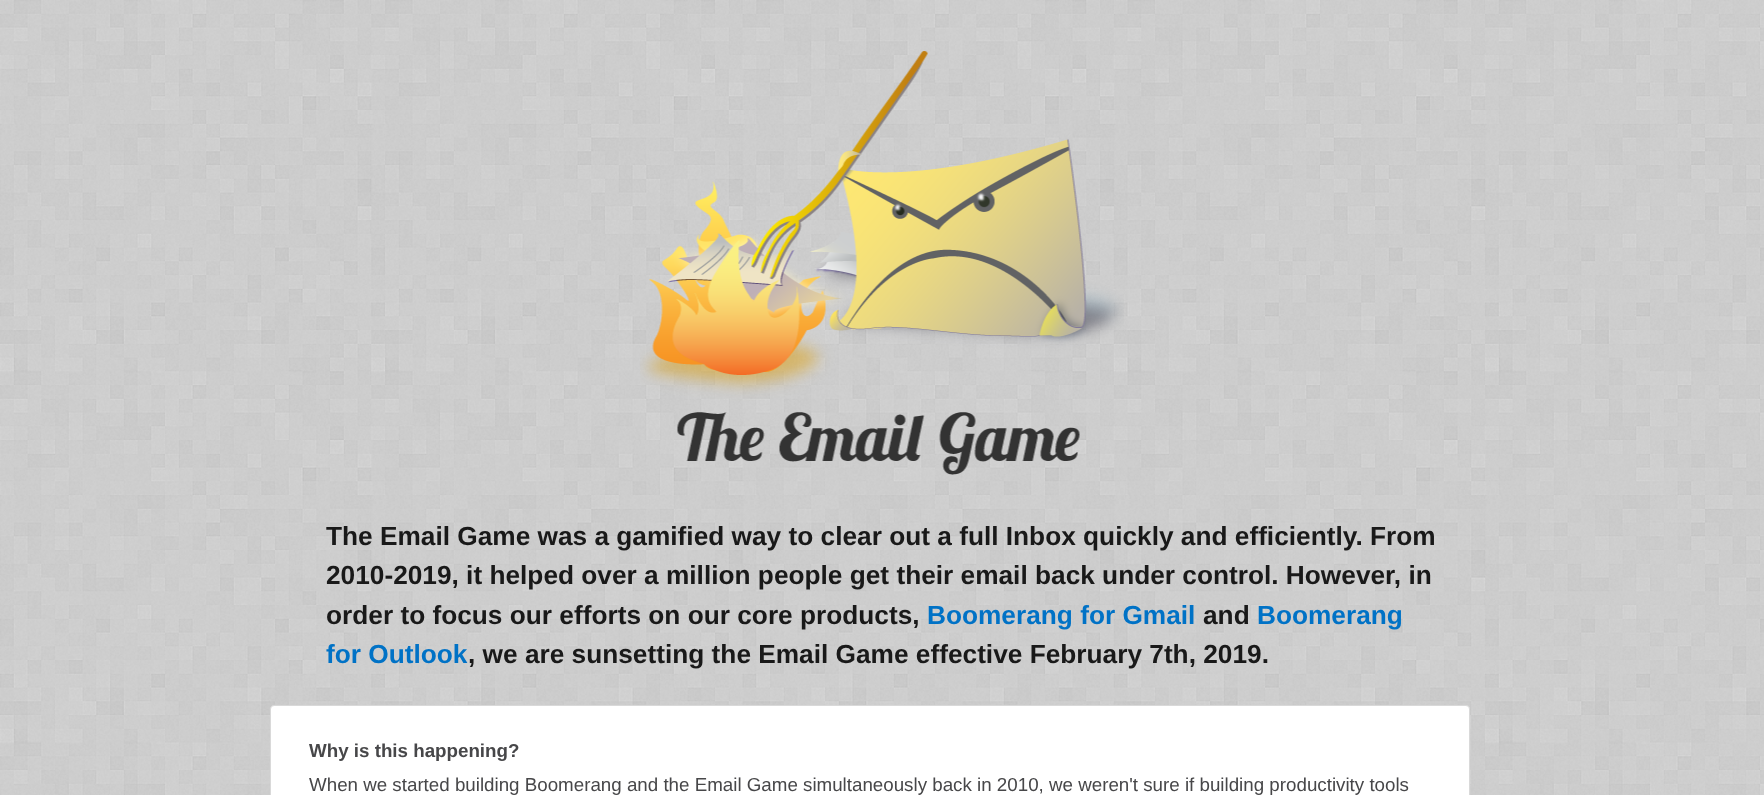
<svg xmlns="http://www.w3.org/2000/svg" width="1764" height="795">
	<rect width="100%" height="100%" fill="#FFFFFF" />
	<image x="0" y="0" width="1764" height="795" href="assets/img1.png" />
	<image x="640" y="51" width="484" height="424" href="assets/img2.png" />
	<g font-family="Liberation Sans" font-size="26.25" font-weight="700" fill="#191919">
		<text x="326" y="545">The Email Game was a gamified way to clear out a full Inbox quickly and efficiently. From</text>
		<text x="326" y="584">2010-2019, it helped over a million people get their email back under control. However, in</text>
		<text x="326" y="624">order to focus our efforts on our core products,</text>
	</g>
	<text x="927" y="624" font-family="Liberation Sans" font-size="26.25" font-weight="700" fill="#0072C6">Boomerang for Gmail</text>
	<text x="1203" y="624" font-family="Liberation Sans" font-size="26.25" font-weight="700" fill="#191919">and</text>
	<g font-family="Liberation Sans" font-size="26.25" font-weight="700" fill="#0072C6">
		<text x="1257" y="624">Boomerang</text>
		<text x="326" y="663">for Outlook</text>
	</g>
	<text x="468" y="663" font-family="Liberation Sans" font-size="26.25" font-weight="700" fill="#191919">, we are sunsetting the Email Game effective February 7th, 2019.</text>
	<rect x="270.5" y="705.5" width="1199" height="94" rx="3.5" fill="#FFFFFF" stroke="#D9D9D9" />
	<text x="309" y="757" font-family="Liberation Sans" font-size="18.75" font-weight="700" fill="#474749">Why is this happening?</text>
	<text x="309" y="791" font-family="Liberation Sans" font-size="18.75" fill="#474749">When we started building Boomerang and the Email Game simultaneously back in 2010, we weren't sure if building productivity tools</text>
</svg>
